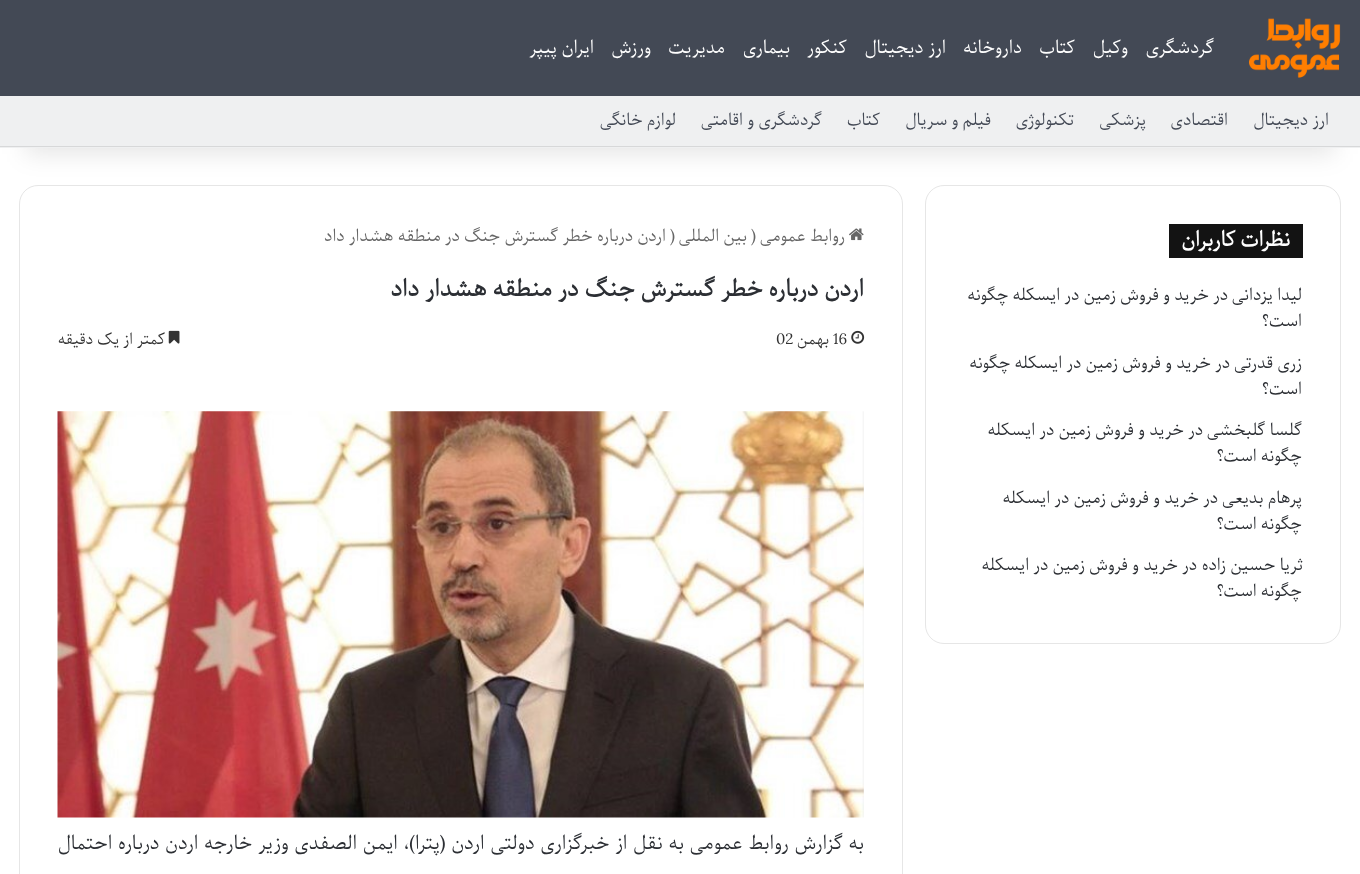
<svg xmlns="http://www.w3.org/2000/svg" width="1360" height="874">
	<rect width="100%" height="100%" fill="#FFFFFF" />
	<rect x="925.5" y="185.5" width="415" height="458" rx="18.5" fill="none" stroke="#E6E6E6" />
	<rect x="19.5" y="185.5" width="883" height="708" rx="18.5" fill="none" stroke="#E6E6E6" />
	<rect x="25" y="56" width="1310" height="98" fill="#000000" fill-opacity="0.1" filter="blur(12.5px)" />
	<rect x="0" y="0" width="1360" height="96" fill="#434955" />
	<image x="1249" y="18" width="92" height="60" href="assets/img1.png" />
	<g font-family="Parastoo" font-size="17.5" direction="rtl" fill="#FFFFFF">
		<text x="1214" y="53">گردشگری</text>
		<text x="1128" y="53">وکیل</text>
		<text x="1075" y="53">کتاب</text>
		<text x="1022" y="53">داروخانه</text>
		<text x="946" y="53">ارز دیجیتال</text>
		<text x="847" y="53">کنکور</text>
		<text x="790" y="53">بیماری</text>
		<text x="725" y="53">مدیریت</text>
		<text x="651" y="53">ورزش</text>
		<text x="594" y="53">ایران پیپر</text>
	</g>
	<rect x="0" y="96" width="1360" height="52" fill="#EFF0F1" />
	<rect x="0" y="146" width="1360" height="1" fill="#D7D8D9" />
	<g font-family="Parastoo" font-size="16.25" direction="rtl" fill="#434955">
		<text x="1329" y="125">ارز دیجیتال</text>
		<text x="1228" y="125">اقتصادی</text>
		<text x="1146" y="125">پزشکی</text>
		<text x="1074" y="125">تکنولوژی</text>
		<text x="991" y="125">فیلم و سریال</text>
		<text x="880" y="125">کتاب</text>
		<text x="822" y="125">گردشگری و اقامتی</text>
		<text x="676" y="125">لوازم خانگی</text>
	</g>
	<rect x="1169" y="224" width="134" height="34" fill="#131313" />
	<text x="1290" y="246" font-family="Parastoo" font-size="20" font-weight="700" direction="rtl" fill="#FFFFFF">نظرات کاربران</text>
	<g font-family="Parastoo" font-size="16.25" direction="rtl" fill="#2C2F34">
		<text x="1302" y="300">لیدا یزدانی</text>
		<text x="1228" y="300">در</text>
		<text x="1209" y="300">خرید و فروش زمین در ایسکله چگونه</text>
		<text x="1302" y="326">است؟</text>
		<text x="1302" y="368">زری قدرتی</text>
		<text x="1230" y="368">در</text>
		<text x="1211" y="368">خرید و فروش زمین در ایسکله چگونه</text>
		<text x="1302" y="394">است؟</text>
		<text x="1302" y="435">گلسا گلبخشی</text>
		<text x="1203" y="435">در</text>
		<text x="1184" y="435">خرید و فروش زمین در ایسکله</text>
		<text x="1302" y="461">چگونه است؟</text>
		<text x="1302" y="503">پرهام بدیعی</text>
		<text x="1218" y="503">در</text>
		<text x="1199" y="503">خرید و فروش زمین در ایسکله</text>
		<text x="1302" y="529">چگونه است؟</text>
		<text x="1303" y="570">ثریا حسین زاده</text>
		<text x="1197" y="570">در</text>
		<text x="1178" y="570">خرید و فروش زمین در ایسکله</text>
		<text x="1302" y="596">چگونه است؟</text>
	</g>
	<image x="849" y="228" width="15" height="13" href="assets/img2.png" />
	<text x="845" y="241" font-family="Parastoo" font-size="16.25" direction="rtl" fill="#666666">روابط عمومی</text>
	<text x="751" y="241" font-family="Parastoo" font-size="16.25" fill="#666666">)</text>
	<text x="747" y="241" font-family="Parastoo" font-size="16.25" direction="rtl" fill="#666666">بین المللی</text>
	<text x="670" y="241" font-family="Parastoo" font-size="16.25" fill="#666666">)</text>
	<text x="666" y="241" font-family="Parastoo" font-size="16.25" direction="rtl" fill="#666666">اردن درباره خطر گسترش جنگ در منطقه هشدار داد</text>
	<text x="864" y="296" font-family="Parastoo" font-size="22.5" font-weight="700" direction="rtl" fill="#2C2F34">اردن درباره خطر گسترش جنگ در منطقه هشدار داد</text>
	<image x="851" y="330" width="14" height="14" href="assets/img3.png" />
	<text x="833" y="344" font-family="Parastoo" font-size="15" fill="#333333">16</text>
	<text x="829" y="344" font-family="Parastoo" font-size="15" direction="rtl" fill="#333333">بهمن</text>
	<text x="776" y="344" font-family="Parastoo" font-size="15" fill="#333333">02</text>
	<image x="168" y="330" width="12" height="14" href="assets/img4.png" />
	<text x="165" y="344" font-family="Parastoo" font-size="15" direction="rtl" fill="#333333">کمتر از یک دقیقه</text>
	<image x="57" y="411" width="807" height="407" href="assets/img5.png" />
	<text x="864" y="849" word-spacing="0.8" font-family="Parastoo" font-size="18.75" direction="rtl" fill="#2C2F34">به گزارش روابط عمومی به نقل از خبرگزاری دولتی اردن (پترا)، ایمن الصفدی وزیر خارجه اردن درباره احتمال</text>
</svg>
